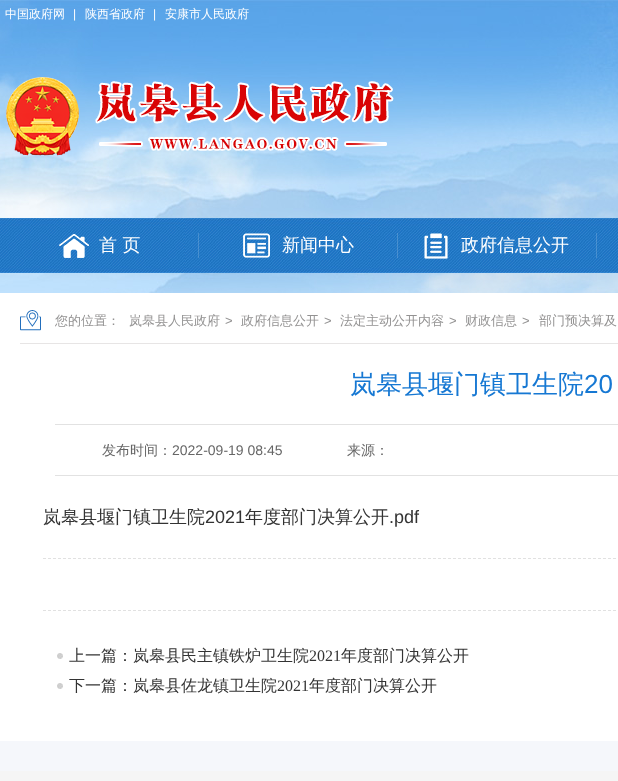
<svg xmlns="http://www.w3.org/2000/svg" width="618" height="781">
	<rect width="100%" height="100%" fill="#F5F7FB" />
	<image x="0" y="0" width="618" height="293" href="assets/img1.png" />
	<text x="5" y="18" font-family="WenQuanYi Zen Hei" font-size="12" font-weight="500" fill="#FFFFFF">中国政府网</text>
	<text x="73" y="18" font-family="Liberation Sans" font-size="12" fill="#FFFFFF">|</text>
	<text x="85" y="18" font-family="WenQuanYi Zen Hei" font-size="12" font-weight="500" fill="#FFFFFF">陕西省政府</text>
	<text x="153" y="18" font-family="Liberation Sans" font-size="12" fill="#FFFFFF">|</text>
	<text x="165" y="18" font-family="WenQuanYi Zen Hei" font-size="12" font-weight="500" fill="#FFFFFF">安康市人民政府</text>
	<image x="6" y="77" width="388" height="79" href="assets/img2.png" />
	<image x="0" y="218" width="618" height="55" href="assets/img3.png" />
	<rect x="198" y="233" width="1" height="25" fill="#FFFFFF" fill-opacity="0.17" />
	<image x="59" y="234" width="30" height="24" href="assets/img4.png" />
	<text x="99" y="251" font-family="WenQuanYi Zen Hei" font-size="18" font-weight="500" fill="#FFFFFF">首 页</text>
	<rect x="397" y="233" width="1" height="25" fill="#FFFFFF" fill-opacity="0.17" />
	<image x="243" y="233" width="27" height="25" href="assets/img5.png" />
	<text x="282" y="251" font-family="WenQuanYi Zen Hei" font-size="18" font-weight="500" fill="#FFFFFF">新闻中心</text>
	<rect x="596" y="233" width="1" height="25" fill="#FFFFFF" fill-opacity="0.17" />
	<image x="424" y="233" width="24" height="26" href="assets/img6.png" />
	<text x="461" y="251" font-family="WenQuanYi Zen Hei" font-size="18" font-weight="500" fill="#FFFFFF">政府信息公开</text>
	<rect x="0" y="293" width="618" height="448" fill="#FFFFFF" />
	<image x="20" y="310" width="21" height="21" href="assets/img7.png" />
	<rect x="20" y="343" width="598" height="1" fill="#E7E5E5" />
	<g font-family="WenQuanYi Zen Hei" font-size="13" font-weight="500" fill="#939292">
		<text x="55" y="325">您的位置：</text>
		<text x="129" y="325">岚皋县人民政府</text>
	</g>
	<text x="225" y="325" font-family="Liberation Sans" font-size="13" fill="#939292">&gt;</text>
	<text x="241" y="325" font-family="WenQuanYi Zen Hei" font-size="13" font-weight="500" fill="#939292">政府信息公开</text>
	<text x="324" y="325" font-family="Liberation Sans" font-size="13" fill="#939292">&gt;</text>
	<text x="340" y="325" font-family="WenQuanYi Zen Hei" font-size="13" font-weight="500" fill="#939292">法定主动公开内容</text>
	<text x="449" y="325" font-family="Liberation Sans" font-size="13" fill="#939292">&gt;</text>
	<text x="465" y="325" font-family="WenQuanYi Zen Hei" font-size="13" font-weight="500" fill="#939292">财政信息</text>
	<text x="522" y="325" font-family="Liberation Sans" font-size="13" fill="#939292">&gt;</text>
	<text x="539" y="325" font-family="WenQuanYi Zen Hei" font-size="13" font-weight="500" fill="#939292">部门预决算及</text>
	<text x="350" y="393" font-family="WenQuanYi Zen Hei" font-size="26" font-weight="500" fill="#1678D3">岚皋县堰门镇卫生院</text>
	<text x="584" y="393" font-family="Liberation Sans" font-size="26" fill="#1678D3">20</text>
	<rect x="55" y="424" width="563" height="1" fill="#E2E2E2" />
	<rect x="55" y="475" width="563" height="1" fill="#E2E2E2" />
	<text x="102" y="455" font-family="WenQuanYi Zen Hei" font-size="14" font-weight="500" fill="#666666">发布时间：</text>
	<text x="172" y="455" font-family="Liberation Sans" font-size="14" fill="#666666">2022-09-19 08:45</text>
	<text x="347" y="455" font-family="WenQuanYi Zen Hei" font-size="14" font-weight="500" fill="#666666">来源：</text>
	<text x="43" y="523" font-family="WenQuanYi Zen Hei" font-size="18" font-weight="500" fill="#333333">岚皋县堰门镇卫生院</text>
	<text x="205" y="523" font-family="Liberation Sans" font-size="18" fill="#333333">2021</text>
	<text x="245" y="523" font-family="WenQuanYi Zen Hei" font-size="18" font-weight="500" fill="#333333">年度部门决算公开</text>
	<text x="389" y="523" font-family="Liberation Sans" font-size="18" fill="#333333">.pdf</text>
	<path d="M43 558.5H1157" fill="none" stroke="#E1E1E1" stroke-dasharray="3 2" />
	<path d="M43 610.5H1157" fill="none" stroke="#E1E1E1" stroke-dasharray="3 2" />
	<image x="57" y="653" width="6" height="6" href="assets/img8.png" />
	<text x="69" y="661" font-family="WenQuanYi Zen Hei" font-size="16" font-weight="500" fill="#333333">上一篇：岚皋县民主镇铁炉卫生院</text>
	<text x="309" y="661" font-family="Liberation Serif" font-size="16" fill="#333333">2021</text>
	<text x="341" y="661" font-family="WenQuanYi Zen Hei" font-size="16" font-weight="500" fill="#333333">年度部门决算公开</text>
	<image x="57" y="683" width="6" height="6" href="assets/img8.png" />
	<text x="69" y="691" font-family="WenQuanYi Zen Hei" font-size="16" font-weight="500" fill="#333333">下一篇：岚皋县佐龙镇卫生院</text>
	<text x="277" y="691" font-family="Liberation Serif" font-size="16" fill="#333333">2021</text>
	<text x="309" y="691" font-family="WenQuanYi Zen Hei" font-size="16" font-weight="500" fill="#333333">年度部门决算公开</text>
	<rect x="0" y="771" width="618" height="10" fill="#F5F5F5" />
</svg>
